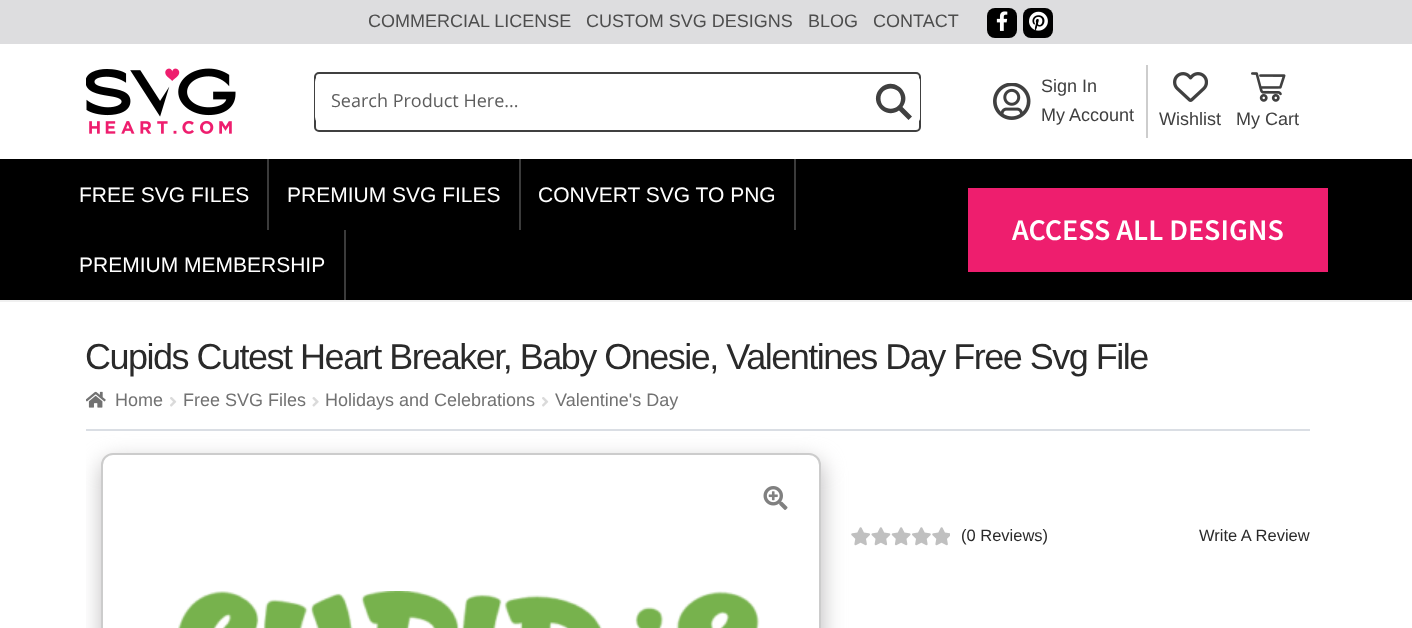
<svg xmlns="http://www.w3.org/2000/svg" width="1412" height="628">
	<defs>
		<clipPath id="clip1"><rect x="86" y="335" width="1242" height="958" /></clipPath>
	</defs>
	<rect width="100%" height="100%" fill="#FFFFFF" />
	<rect x="0" y="300" width="1412" height="2" fill="#F0F0F0" />
	<rect x="0" y="0" width="1412" height="44" fill="#DDDDDF" />
	<g font-family="Liberation Sans" font-size="18" fill="#4D4D4D">
		<text x="368" y="27">COMMERCIAL LICENSE</text>
		<text x="586" y="27">CUSTOM SVG DESIGNS</text>
		<text x="808" y="27">BLOG</text>
		<text x="873" y="27">CONTACT</text>
	</g>
	<rect x="987" y="8" width="30" height="30" rx="8" fill="#000000" />
	<image x="996" y="11" width="12" height="20" href="assets/img1.png" />
	<rect x="1023" y="8" width="30" height="30" rx="8" fill="#000000" />
	<image x="1029" y="11" width="19" height="20" href="assets/img2.png" />
	<image x="86" y="68" width="150" height="66" href="assets/img3.png" />
	<rect x="315" y="73" width="605" height="58" rx="4" fill="none" stroke="#404040" stroke-width="2" />
	<rect x="315" y="74" width="605" height="51" rx="8" fill="#FFFFFF" />
	<text x="331" y="107" font-family="Open Sans" font-size="18" fill="#5D5D5D">Search Product Here...</text>
	<path d="M869 74H912C916.5 74 920 77.5 920 82V117C920 121.5 916.5 125 912 125H869Z" fill="#FFFFFF" />
	<path d="M912 116.5L902.5 107C913 93 893.5 75.5 880.5 88C867.5 101 885 120.5 899 110.5L908.5 120ZM880.5 98.5C880.5 85 901 85 901 98.5C901 112 880.5 112 880.5 98.5Z" fill="#404040" />
	<rect x="1146" y="65" width="2" height="73" fill="#CDCDCD" />
	<image x="993" y="83" width="38" height="37" href="assets/img4.png" />
	<g font-family="Liberation Sans" font-size="18" fill="#404040">
		<text x="1041" y="92">Sign In</text>
		<text x="1041" y="121">My Account</text>
	</g>
	<image x="1173" y="72" width="35" height="30" href="assets/img5.png" />
	<text x="1159" y="125" font-family="Liberation Sans" font-size="18" fill="#404040">Wishlist</text>
	<image x="1251" y="72" width="35" height="30" href="assets/img6.png" />
	<text x="1236" y="125" font-family="Liberation Sans" font-size="18" fill="#404040">My Cart</text>
	<rect x="0" y="159" width="1412" height="141" fill="#000000" />
	<rect x="267" y="159" width="2" height="71" fill="#3B3B3B" />
	<text x="79" y="202" font-family="Liberation Sans" font-size="21" fill="#FFFFFF">FREE SVG FILES</text>
	<rect x="519" y="159" width="2" height="71" fill="#3B3B3B" />
	<text x="287" y="202" font-family="Liberation Sans" font-size="21" fill="#FFFFFF">PREMIUM SVG FILES</text>
	<rect x="794" y="159" width="2" height="71" fill="#3B3B3B" />
	<text x="538" y="202" font-family="Liberation Sans" font-size="21" fill="#FFFFFF">CONVERT SVG TO PNG</text>
	<rect x="344" y="230" width="2" height="70" fill="#3B3B3B" />
	<text x="79" y="272" font-family="Liberation Sans" font-size="21" fill="#FFFFFF">PREMIUM MEMBERSHIP</text>
	<rect x="968" y="188" width="360" height="84" fill="#EE1E6E" />
	<text x="1012" y="240" font-family="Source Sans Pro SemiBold" font-size="30" font-weight="600" fill="#FFFFFF">ACCESS ALL DESIGNS</text>
	<rect x="86" y="429" width="1224" height="2" fill="#DADEE4" />
	<text x="85" y="369" font-family="Liberation Sans" font-size="36" letter-spacing="-1.5" fill="#2A2A2A">Cupids Cutest Heart Breaker, Baby Onesie, Valentines Day Free Svg File</text>
	<image x="86" y="391" width="20" height="17" href="assets/img7.png" />
	<text x="115" y="406" font-family="Liberation Sans" font-size="18" fill="#727272">Home</text>
	<image x="170" y="397" width="7" height="10" href="assets/img8.png" />
	<text x="183" y="406" font-family="Liberation Sans" font-size="18" fill="#727272">Free SVG Files</text>
	<image x="312" y="397" width="7" height="10" href="assets/img9.png" />
	<text x="325" y="406" font-family="Liberation Sans" font-size="18" fill="#727272">Holidays and Celebrations</text>
	<image x="542" y="397" width="7" height="10" href="assets/img8.png" />
	<text x="555" y="406" font-family="Liberation Sans" font-size="18" fill="#727272">Valentine's Day</text>
	<g clip-path="url(#clip1)">
		<rect x="102" y="461" width="720" height="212" rx="12" fill="#BDBBBC" filter="blur(11px)" />
	</g>
	<rect x="102" y="454" width="718" height="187" rx="11" fill="#FFFFFF" stroke="#CCCCCC" stroke-width="2" />
	<image x="178" y="591" width="582" height="37" href="assets/img10.png" />
	<image x="763" y="486" width="25" height="24" href="assets/img11.png" />
	<image x="851" y="527" width="99" height="19" href="assets/img12.png" />
	<g font-family="Liberation Sans" font-size="16.5" fill="#2A2A2A">
		<text x="961" y="541">(0 Reviews)</text>
		<text x="1199" y="541">Write A Review</text>
	</g>
</svg>
